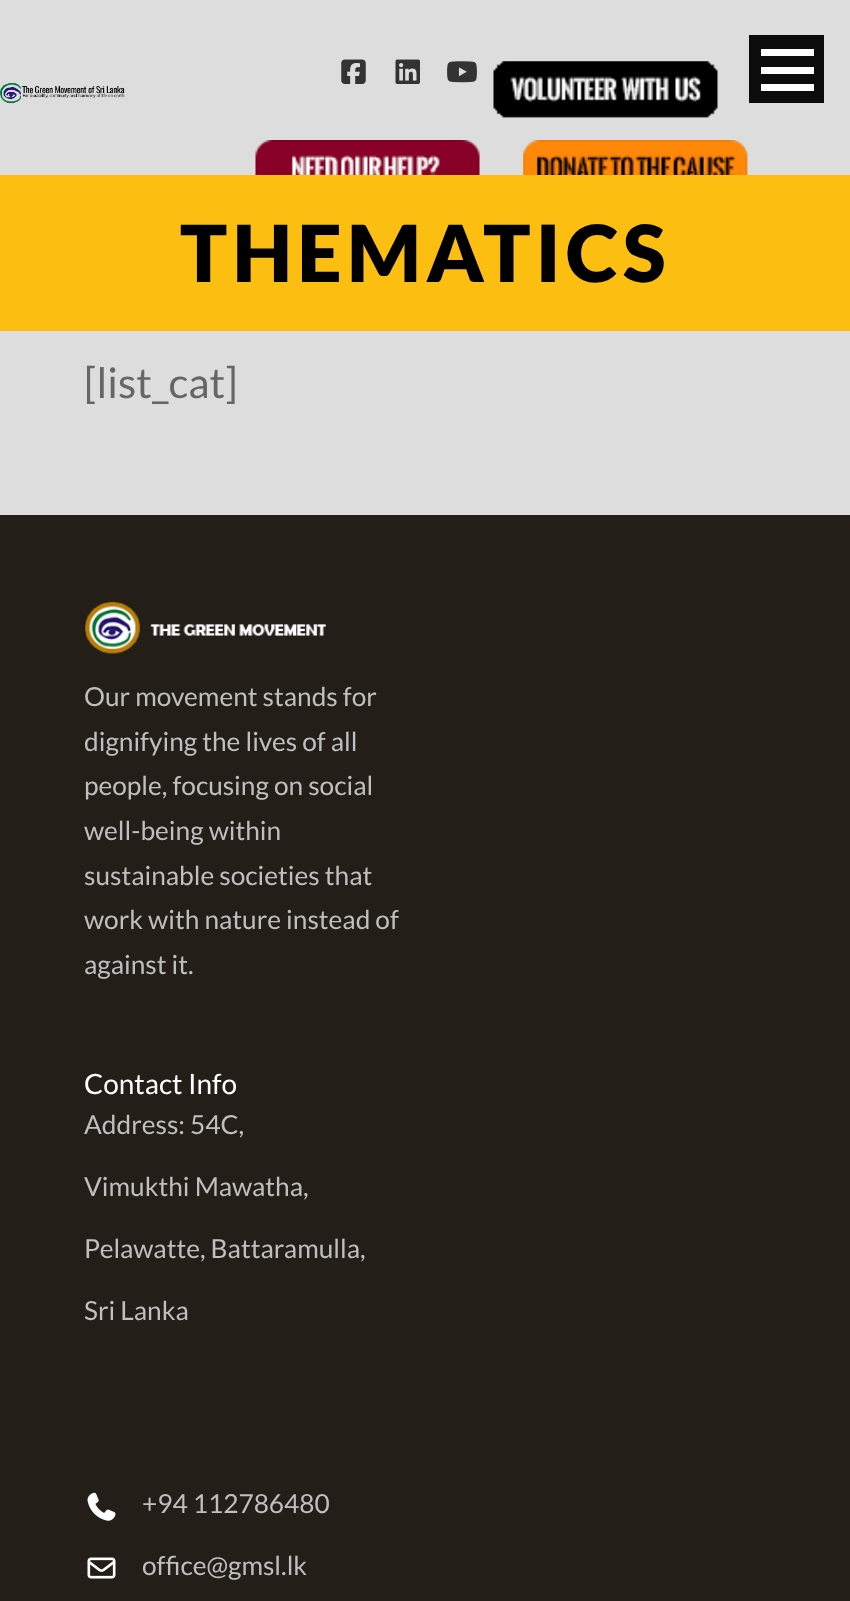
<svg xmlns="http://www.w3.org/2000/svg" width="850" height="1601">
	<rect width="100%" height="100%" fill="#DDDDDD" />
	<image x="0" y="83" width="125" height="21" href="assets/img1.png" />
	<rect x="749" y="35" width="75" height="68" fill="#0C0C0C" />
	<rect x="761" y="84" width="53" height="7" fill="#FFFFFF" />
	<rect x="761" y="67" width="53" height="7" fill="#FFFFFF" />
	<rect x="761" y="49" width="53" height="7" fill="#FFFFFF" />
	<image x="341" y="59" width="25" height="25" href="assets/img2.png" />
	<image x="395" y="59" width="25" height="25" href="assets/img3.png" />
	<image x="447" y="61" width="30" height="22" href="assets/img4.png" />
	<image x="493" y="61" width="225" height="57" href="assets/img5.png" />
	<image x="255" y="140" width="225" height="35" href="assets/img6.png" />
	<image x="523" y="140" width="225" height="35" href="assets/img7.png" />
	<rect x="0" y="175" width="850" height="156" fill="#FCBF11" />
	<text x="180" y="282" font-family="Lato" font-size="78.75" font-weight="900" letter-spacing="5.25" fill="#000000">THEMATICS</text>
	<text x="84" y="398" font-family="Lato" font-size="42" fill="#666666">[list_cat]</text>
	<rect x="0" y="515" width="850" height="1086" fill="#231E18" />
	<image x="85" y="602" width="241" height="52" href="assets/img8.png" />
	<g font-family="Lato" font-size="26.25" fill="#BFBFBF">
		<text x="84" y="706">Our movement stands for</text>
		<text x="84" y="751">dignifying the lives of all</text>
		<text x="84" y="795">people, focusing on social</text>
		<text x="84" y="840">well-being within</text>
		<text x="84" y="885">sustainable societies that</text>
		<text x="84" y="929">work with nature instead of</text>
		<text x="84" y="974">against it.</text>
	</g>
	<text x="84" y="1094" font-family="Lato" font-size="28" fill="#FFFFFF">Contact Info</text>
	<g font-family="Lato" font-size="26.25" fill="#BFBFBF">
		<text x="84" y="1134">Address: 54C,</text>
		<text x="84" y="1196">Vimukthi Mawatha,</text>
		<text x="84" y="1258">Pelawatte, Battaramulla,</text>
		<text x="84" y="1320">Sri Lanka</text>
	</g>
	<image x="87" y="1492" width="29" height="29" href="assets/img9.png" />
	<text x="142" y="1513" font-family="Lato" font-size="26.25" fill="#BFBFBF">+94 112786480</text>
	<image x="87" y="1557" width="29" height="22" href="assets/img10.png" />
	<text x="142" y="1575" font-family="Lato" font-size="26.25" fill="#BFBFBF">office@gmsl.lk</text>
</svg>
